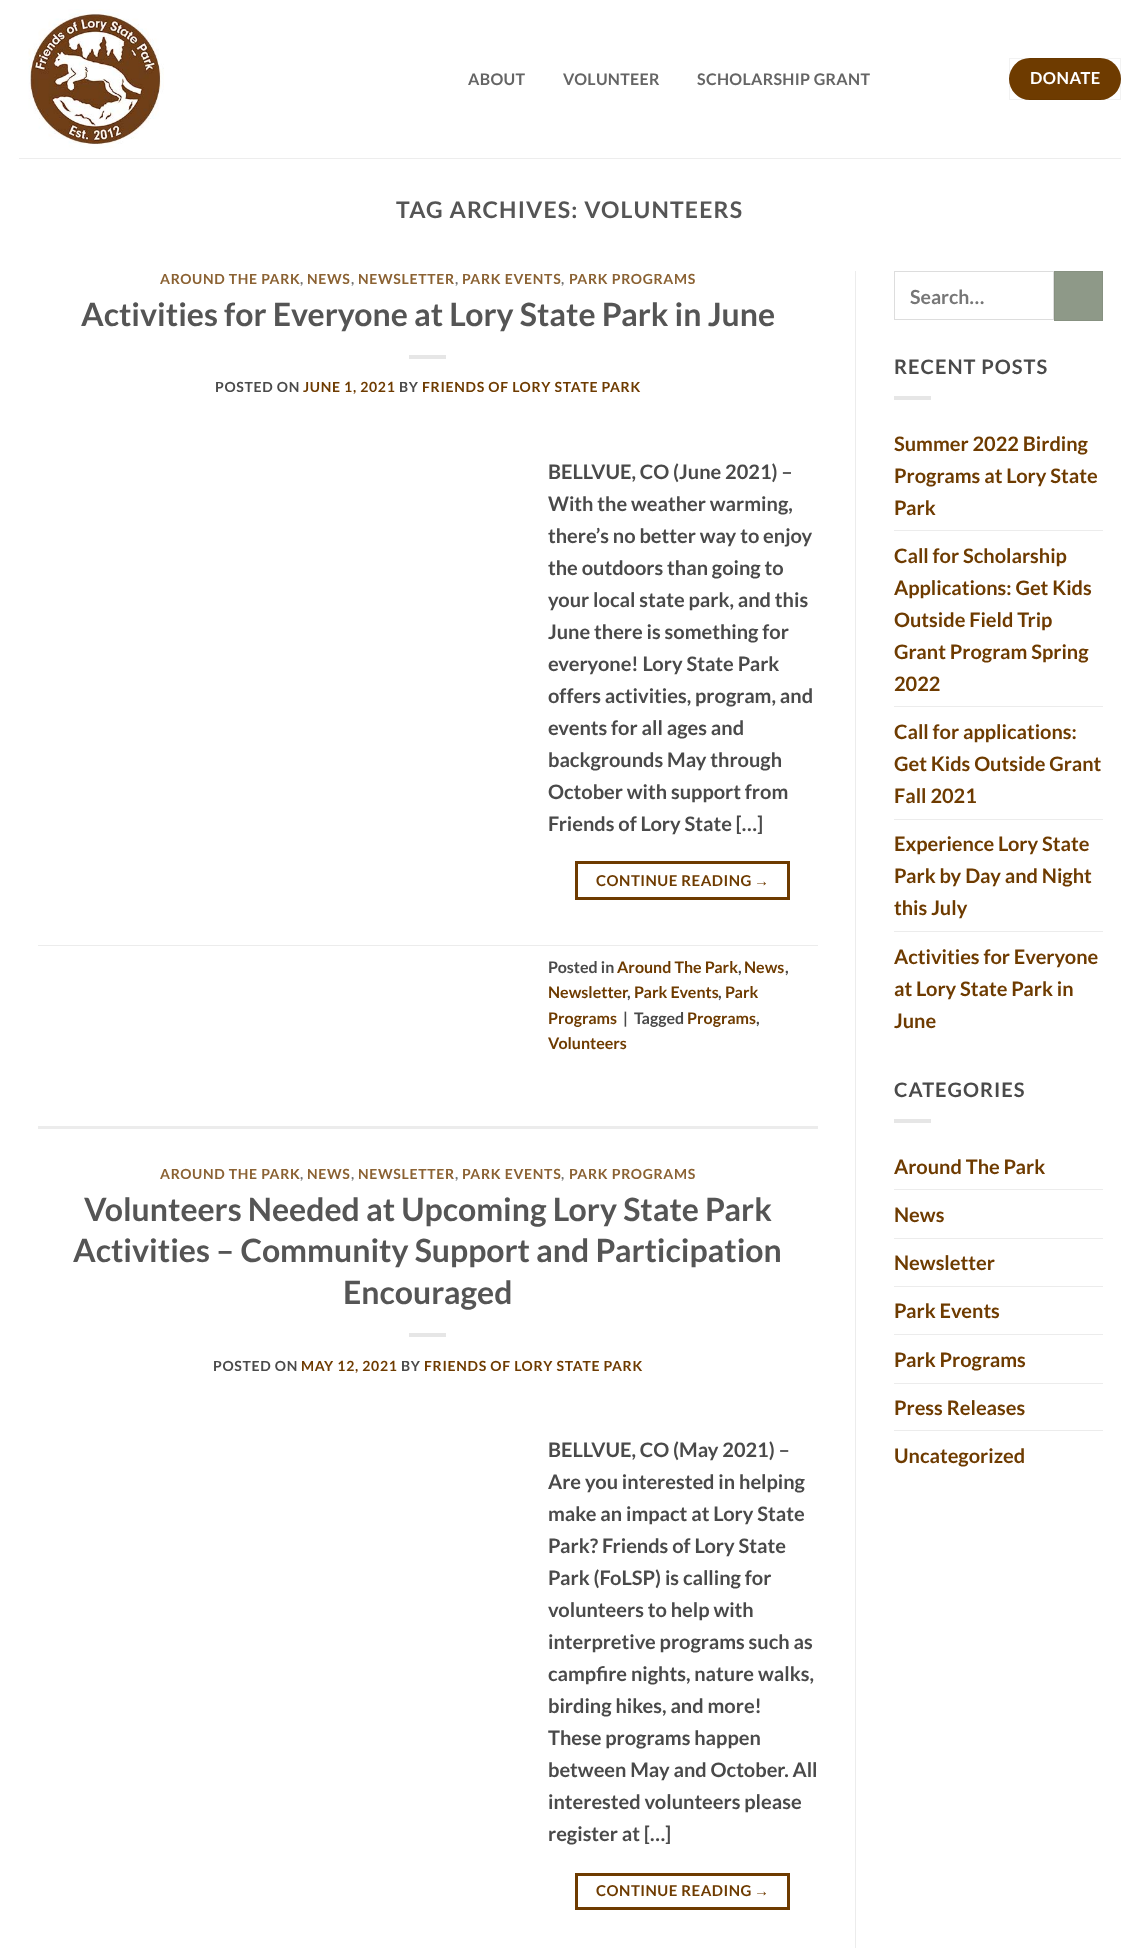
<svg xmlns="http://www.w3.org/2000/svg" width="1139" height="1948">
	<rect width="100%" height="100%" fill="#FFFFFF" />
	<image x="28" y="9" width="136" height="139" href="assets/img1.png" />
	<g font-family="Lato" font-size="16" font-weight="700" letter-spacing="0.3" fill="#656565">
		<text x="468" y="85">ABOUT</text>
		<text x="563" y="85">VOLUNTEER</text>
		<text x="697" y="85">SCHOLARSHIP GRANT</text>
	</g>
	<rect x="1009" y="58" width="112" height="42" rx="21" fill="#6E3B00" />
	<rect x="1009.5" y="58.5" width="111" height="41" fill="none" stroke="#000000" stroke-opacity="0.05" />
	<text x="1030" y="84" font-family="Lato" font-size="16.5" font-weight="700" letter-spacing="0.5" fill="#FFFFFF">DONATE</text>
	<rect x="19" y="158" width="1102" height="1" fill="#EDEDED" />
	<text x="396" y="218" font-family="Lato" font-size="23" font-weight="700" letter-spacing="1.15" fill="#555555">TAG ARCHIVES: VOLUNTEERS</text>
	<text x="160" y="284" font-family="Lato" font-size="14" font-weight="700" letter-spacing="0.7" fill="#8B6233">AROUND THE PARK</text>
	<text x="300" y="284" font-family="Lato" font-size="14" font-weight="700" letter-spacing="0.7" fill="#777777">,</text>
	<text x="307" y="284" font-family="Lato" font-size="14" font-weight="700" letter-spacing="0.7" fill="#8B6233">NEWS</text>
	<text x="351" y="284" font-family="Lato" font-size="14" font-weight="700" letter-spacing="0.7" fill="#777777">,</text>
	<text x="358" y="284" font-family="Lato" font-size="14" font-weight="700" letter-spacing="0.7" fill="#8B6233">NEWSLETTER</text>
	<text x="455" y="284" font-family="Lato" font-size="14" font-weight="700" letter-spacing="0.7" fill="#777777">,</text>
	<text x="462" y="284" font-family="Lato" font-size="14" font-weight="700" letter-spacing="0.7" fill="#8B6233">PARK EVENTS</text>
	<text x="561" y="284" font-family="Lato" font-size="14" font-weight="700" letter-spacing="0.7" fill="#777777">,</text>
	<text x="569" y="284" font-family="Lato" font-size="14" font-weight="700" letter-spacing="0.7" fill="#8B6233">PARK PROGRAMS</text>
	<text x="81" y="326" font-family="Lato" font-size="32" font-weight="700" fill="#555555">Activities for Everyone at Lory State Park in June</text>
	<rect x="409" y="355" width="37" height="4" fill="#E6E6E6" />
	<text x="215" y="392" font-family="Lato" font-size="14" font-weight="700" letter-spacing="0.7" fill="#4A4A4A">POSTED ON</text>
	<text x="303" y="392" font-family="Lato" font-size="14" font-weight="700" letter-spacing="0.7" fill="#6E3B00">JUNE 1, 2021</text>
	<text x="399" y="392" font-family="Lato" font-size="14" font-weight="700" letter-spacing="0.7" fill="#4A4A4A">BY</text>
	<text x="422" y="392" font-family="Lato" font-size="14" font-weight="700" letter-spacing="0.7" fill="#6E3B00">FRIENDS OF LORY STATE PARK</text>
	<g font-family="Lato" font-size="20" font-weight="700" fill="#4A4A4A">
		<text x="548" y="479">BELLVUE, CO (June 2021) –</text>
		<text x="548" y="511">With the weather warming,</text>
		<text x="548" y="543">there’s no better way to enjoy</text>
		<text x="548" y="575">the outdoors than going to</text>
		<text x="548" y="607">your local state park, and this</text>
		<text x="548" y="639">June there is something for</text>
		<text x="548" y="671">everyone! Lory State Park</text>
		<text x="548" y="703">offers activities, program, and</text>
		<text x="548" y="735">events for all ages and</text>
		<text x="548" y="767">backgrounds May through</text>
		<text x="548" y="799">October with support from</text>
		<text x="548" y="831">Friends of Lory State […]</text>
	</g>
	<rect x="576.5" y="862.5" width="212" height="36" fill="none" stroke="#6E3B00" stroke-width="3" />
	<text x="596" y="886" font-family="Lato" font-size="15" font-weight="700" letter-spacing="0.5" fill="#6E3B00">CONTINUE READING</text>
	<text x="754" y="886" font-family="Liberation Sans" font-size="15" font-weight="700" letter-spacing="0.5" fill="#6E3B00">→</text>
	<rect x="38" y="945" width="780" height="1" fill="#ECECEC" />
	<rect x="38" y="1126" width="780" height="3" fill="#ECECEC" />
	<text x="548" y="973" font-family="Lato" font-size="16" font-weight="700" fill="#4A4A4A">Posted in</text>
	<text x="617" y="973" font-family="Lato" font-size="16" font-weight="700" fill="#6E3B00">Around The Park</text>
	<text x="738" y="973" font-family="Lato" font-size="16" font-weight="700" fill="#4A4A4A">,</text>
	<text x="744" y="973" font-family="Lato" font-size="16" font-weight="700" fill="#6E3B00">News</text>
	<text x="785" y="973" font-family="Lato" font-size="16" font-weight="700" fill="#4A4A4A">,</text>
	<text x="548" y="998" font-family="Lato" font-size="16" font-weight="700" fill="#6E3B00">Newsletter</text>
	<text x="627" y="998" font-family="Lato" font-size="16" font-weight="700" fill="#4A4A4A">,</text>
	<text x="634" y="998" font-family="Lato" font-size="16" font-weight="700" fill="#6E3B00">Park Events</text>
	<text x="718" y="998" font-family="Lato" font-size="16" font-weight="700" fill="#4A4A4A">,</text>
	<g font-family="Lato" font-size="16" font-weight="700" fill="#6E3B00">
		<text x="725" y="998">Park</text>
		<text x="548" y="1024">Programs</text>
	</g>
	<g font-family="Lato" font-size="16" font-weight="700" fill="#4A4A4A">
		<text x="623" y="1024">|</text>
		<text x="634" y="1024">Tagged</text>
	</g>
	<text x="687" y="1024" font-family="Lato" font-size="16" font-weight="700" fill="#6E3B00">Programs</text>
	<text x="756" y="1024" font-family="Lato" font-size="16" font-weight="700" fill="#4A4A4A">,</text>
	<text x="548" y="1049" font-family="Lato" font-size="16" font-weight="700" fill="#6E3B00">Volunteers</text>
	<text x="160" y="1179" font-family="Lato" font-size="14" font-weight="700" letter-spacing="0.7" fill="#8B6233">AROUND THE PARK</text>
	<text x="300" y="1179" font-family="Lato" font-size="14" font-weight="700" letter-spacing="0.7" fill="#777777">,</text>
	<text x="307" y="1179" font-family="Lato" font-size="14" font-weight="700" letter-spacing="0.7" fill="#8B6233">NEWS</text>
	<text x="351" y="1179" font-family="Lato" font-size="14" font-weight="700" letter-spacing="0.7" fill="#777777">,</text>
	<text x="358" y="1179" font-family="Lato" font-size="14" font-weight="700" letter-spacing="0.7" fill="#8B6233">NEWSLETTER</text>
	<text x="455" y="1179" font-family="Lato" font-size="14" font-weight="700" letter-spacing="0.7" fill="#777777">,</text>
	<text x="462" y="1179" font-family="Lato" font-size="14" font-weight="700" letter-spacing="0.7" fill="#8B6233">PARK EVENTS</text>
	<text x="561" y="1179" font-family="Lato" font-size="14" font-weight="700" letter-spacing="0.7" fill="#777777">,</text>
	<text x="569" y="1179" font-family="Lato" font-size="14" font-weight="700" letter-spacing="0.7" fill="#8B6233">PARK PROGRAMS</text>
	<g font-family="Lato" font-size="32" font-weight="700" fill="#555555">
		<text x="84" y="1221">Volunteers Needed at Upcoming Lory State Park</text>
		<text x="73" y="1262">Activities – Community Support and Participation</text>
		<text x="343" y="1304">Encouraged</text>
	</g>
	<rect x="409" y="1333" width="37" height="4" fill="#E6E6E6" />
	<text x="213" y="1371" font-family="Lato" font-size="14" font-weight="700" letter-spacing="0.7" fill="#4A4A4A">POSTED ON</text>
	<text x="301" y="1371" font-family="Lato" font-size="14" font-weight="700" letter-spacing="0.7" fill="#6E3B00">MAY 12, 2021</text>
	<text x="401" y="1371" font-family="Lato" font-size="14" font-weight="700" letter-spacing="0.7" fill="#4A4A4A">BY</text>
	<text x="424" y="1371" font-family="Lato" font-size="14" font-weight="700" letter-spacing="0.7" fill="#6E3B00">FRIENDS OF LORY STATE PARK</text>
	<g font-family="Lato" font-size="20" font-weight="700" fill="#4A4A4A">
		<text x="548" y="1457">BELLVUE, CO (May 2021) –</text>
		<text x="548" y="1489">Are you interested in helping</text>
		<text x="548" y="1521">make an impact at Lory State</text>
		<text x="548" y="1553">Park? Friends of Lory State</text>
		<text x="548" y="1585">Park (FoLSP) is calling for</text>
		<text x="548" y="1617">volunteers to help with</text>
		<text x="548" y="1649">interpretive programs such as</text>
		<text x="548" y="1681">campfire nights, nature walks,</text>
		<text x="548" y="1713">birding hikes, and more!</text>
		<text x="548" y="1745">These programs happen</text>
		<text x="548" y="1777">between May and October. All</text>
		<text x="548" y="1809">interested volunteers please</text>
		<text x="548" y="1841">register at […]</text>
	</g>
	<rect x="576.5" y="1874.5" width="212" height="34" fill="none" stroke="#6E3B00" stroke-width="3" />
	<text x="596" y="1896" font-family="Lato" font-size="15" font-weight="700" letter-spacing="0.5" fill="#6E3B00">CONTINUE READING</text>
	<text x="754" y="1896" font-family="Liberation Sans" font-size="15" font-weight="700" letter-spacing="0.5" fill="#6E3B00">→</text>
	<rect x="855" y="271" width="1" height="1677" fill="#ECECEC" />
	<rect x="894.5" y="271.5" width="159" height="48" fill="none" stroke="#DDDDDD" />
	<text x="910" y="304" font-family="Lato" font-size="19.5" font-weight="700" fill="#777777">Search…</text>
	<rect x="1054.5" y="271.5" width="48" height="49" fill="#8E9988" stroke="#879181" />
	<text x="894" y="374" font-family="Lato" font-size="20" font-weight="700" letter-spacing="1" fill="#4A4A4A">RECENT POSTS</text>
	<rect x="894" y="396" width="37" height="4" fill="#E6E6E6" />
	<g font-family="Lato" font-size="20" font-weight="700" fill="#6E3B00">
		<text x="894" y="451">Summer 2022 Birding</text>
		<text x="894" y="483">Programs at Lory State</text>
		<text x="894" y="515">Park</text>
	</g>
	<rect x="894" y="530" width="209" height="1" fill="#ECECEC" />
	<g font-family="Lato" font-size="20" font-weight="700" fill="#6E3B00">
		<text x="894" y="563">Call for Scholarship</text>
		<text x="894" y="595">Applications: Get Kids</text>
		<text x="894" y="627">Outside Field Trip</text>
		<text x="894" y="659">Grant Program Spring</text>
		<text x="894" y="691">2022</text>
	</g>
	<rect x="894" y="706" width="209" height="1" fill="#ECECEC" />
	<g font-family="Lato" font-size="20" font-weight="700" fill="#6E3B00">
		<text x="894" y="739">Call for applications:</text>
		<text x="894" y="771">Get Kids Outside Grant</text>
		<text x="894" y="803">Fall 2021</text>
	</g>
	<rect x="894" y="819" width="209" height="1" fill="#ECECEC" />
	<g font-family="Lato" font-size="20" font-weight="700" fill="#6E3B00">
		<text x="894" y="851">Experience Lory State</text>
		<text x="894" y="883">Park by Day and Night</text>
		<text x="894" y="915">this July</text>
	</g>
	<rect x="894" y="931" width="209" height="1" fill="#ECECEC" />
	<g font-family="Lato" font-size="20" font-weight="700" fill="#6E3B00">
		<text x="894" y="964">Activities for Everyone</text>
		<text x="894" y="996">at Lory State Park in</text>
		<text x="894" y="1028">June</text>
	</g>
	<text x="894" y="1097" font-family="Lato" font-size="20" font-weight="700" letter-spacing="1" fill="#4A4A4A">CATEGORIES</text>
	<rect x="894" y="1119" width="37" height="4" fill="#E6E6E6" />
	<text x="894" y="1174" font-family="Lato" font-size="20" font-weight="700" fill="#6E3B00">Around The Park</text>
	<rect x="894" y="1189" width="209" height="1" fill="#ECECEC" />
	<text x="894" y="1222" font-family="Lato" font-size="20" font-weight="700" fill="#6E3B00">News</text>
	<rect x="894" y="1238" width="209" height="1" fill="#ECECEC" />
	<text x="894" y="1270" font-family="Lato" font-size="20" font-weight="700" fill="#6E3B00">Newsletter</text>
	<rect x="894" y="1286" width="209" height="1" fill="#ECECEC" />
	<text x="894" y="1318" font-family="Lato" font-size="20" font-weight="700" fill="#6E3B00">Park Events</text>
	<rect x="894" y="1334" width="209" height="1" fill="#ECECEC" />
	<text x="894" y="1367" font-family="Lato" font-size="20" font-weight="700" fill="#6E3B00">Park Programs</text>
	<rect x="894" y="1383" width="209" height="1" fill="#ECECEC" />
	<text x="894" y="1415" font-family="Lato" font-size="20" font-weight="700" fill="#6E3B00">Press Releases</text>
	<rect x="894" y="1430" width="209" height="1" fill="#ECECEC" />
	<text x="894" y="1463" font-family="Lato" font-size="20" font-weight="700" fill="#6E3B00">Uncategorized</text>
</svg>
